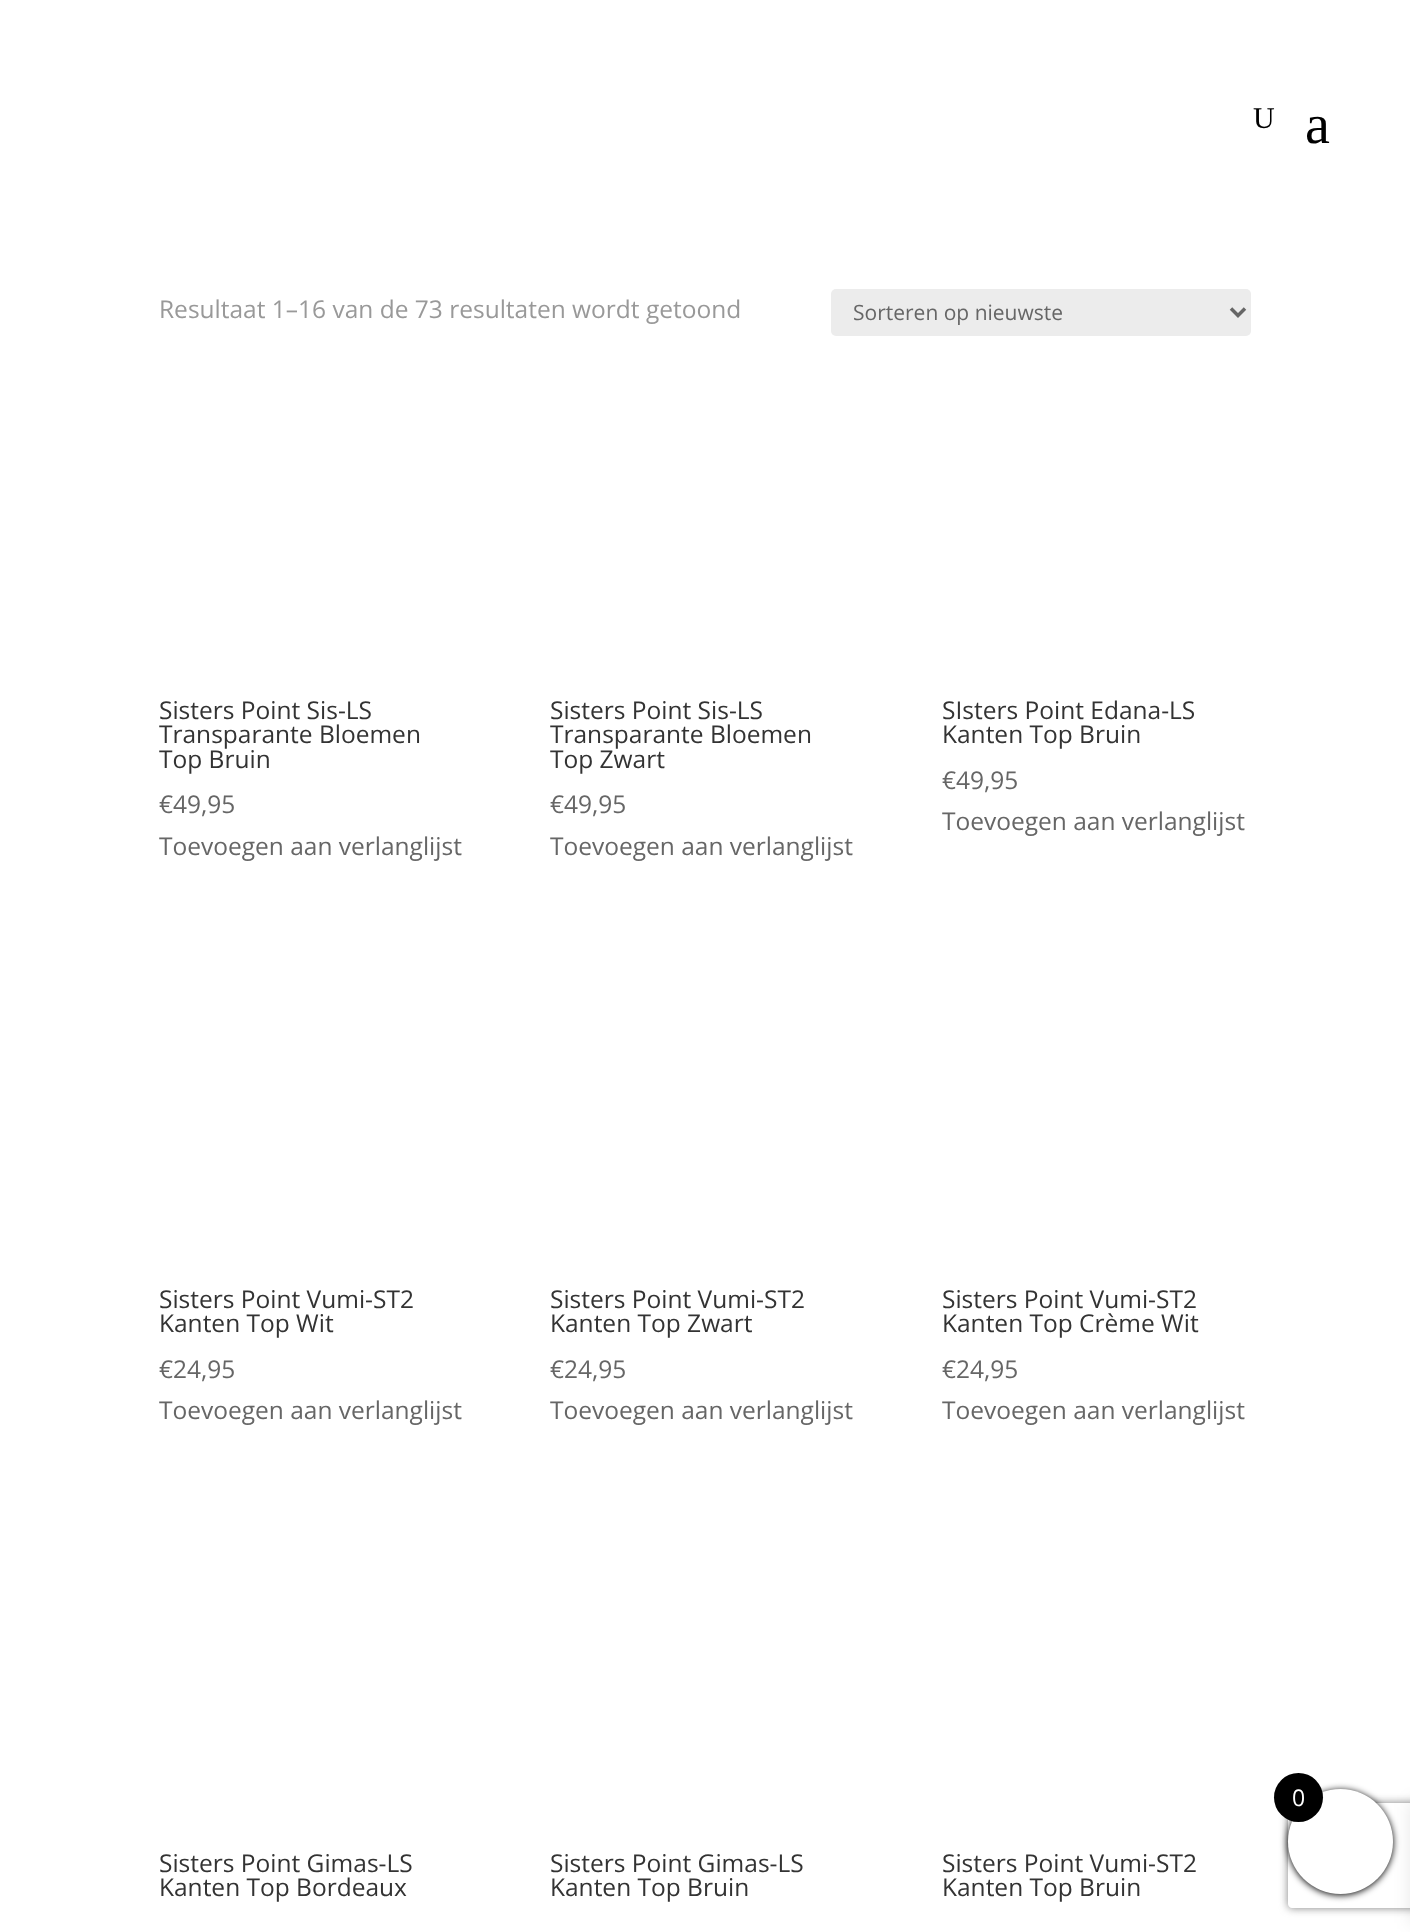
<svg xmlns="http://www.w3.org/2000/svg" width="1410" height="1932">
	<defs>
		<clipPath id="clip1"><path d="M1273 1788H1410V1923H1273ZM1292 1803H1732C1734 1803 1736 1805 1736 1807V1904C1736 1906 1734 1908 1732 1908H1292C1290 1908 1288 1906 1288 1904V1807C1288 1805 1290 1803 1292 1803Z" clip-rule="evenodd" /></clipPath>
	</defs>
	<rect width="100%" height="100%" fill="#FFFFFF" />
	<text x="1253" y="128" font-family="Liberation Serif" font-size="30" fill="#000000">U</text>
	<text x="1305" y="143" font-family="Liberation Serif" font-size="56" fill="#000000">a</text>
	<text x="159" y="318" font-family="Open Sans" font-size="24.5" fill="#999999">Resultaat 1–16 van de 73 resultaten wordt getoond</text>
	<rect x="831" y="289" width="420" height="47" rx="5" fill="#ECECEC" />
	<path d="M1231 308.5L1238 315.5L1245 308.5" fill="none" stroke="#666666" stroke-width="3.5" />
	<text x="853" y="320" font-family="Open Sans" font-size="21" fill="#666666">Sorteren op nieuwste</text>
	<g font-family="Open Sans" font-size="24.5" fill="#333333">
		<text x="159" y="719">Sisters Point Sis-LS</text>
		<text x="159" y="743">Transparante Bloemen</text>
		<text x="159" y="768">Top Bruin</text>
	</g>
	<g font-family="Open Sans" font-size="24.5" fill="#666666">
		<text x="159" y="813">€49,95</text>
		<text x="159" y="855">Toevoegen aan verlanglijst</text>
	</g>
	<g font-family="Open Sans" font-size="24.5" fill="#333333">
		<text x="550" y="719">Sisters Point Sis-LS</text>
		<text x="550" y="743">Transparante Bloemen</text>
		<text x="550" y="768">Top Zwart</text>
	</g>
	<g font-family="Open Sans" font-size="24.5" fill="#666666">
		<text x="550" y="813">€49,95</text>
		<text x="550" y="855">Toevoegen aan verlanglijst</text>
	</g>
	<g font-family="Open Sans" font-size="24.5" fill="#333333">
		<text x="942" y="719">SIsters Point Edana-LS</text>
		<text x="942" y="743">Kanten Top Bruin</text>
	</g>
	<g font-family="Open Sans" font-size="24.5" fill="#666666">
		<text x="942" y="789">€49,95</text>
		<text x="942" y="830">Toevoegen aan verlanglijst</text>
	</g>
	<g font-family="Open Sans" font-size="24.5" fill="#333333">
		<text x="159" y="1308">Sisters Point Vumi-ST2</text>
		<text x="159" y="1332">Kanten Top Wit</text>
	</g>
	<g font-family="Open Sans" font-size="24.5" fill="#666666">
		<text x="159" y="1378">€24,95</text>
		<text x="159" y="1419">Toevoegen aan verlanglijst</text>
	</g>
	<g font-family="Open Sans" font-size="24.5" fill="#333333">
		<text x="550" y="1308">Sisters Point Vumi-ST2</text>
		<text x="550" y="1332">Kanten Top Zwart</text>
	</g>
	<g font-family="Open Sans" font-size="24.5" fill="#666666">
		<text x="550" y="1378">€24,95</text>
		<text x="550" y="1419">Toevoegen aan verlanglijst</text>
	</g>
	<g font-family="Open Sans" font-size="24.5" fill="#333333">
		<text x="942" y="1308">Sisters Point Vumi-ST2</text>
		<text x="942" y="1332">Kanten Top Crème Wit</text>
	</g>
	<g font-family="Open Sans" font-size="24.5" fill="#666666">
		<text x="942" y="1378">€24,95</text>
		<text x="942" y="1419">Toevoegen aan verlanglijst</text>
	</g>
	<g font-family="Open Sans" font-size="24.5" fill="#333333">
		<text x="159" y="1872">Sisters Point Gimas-LS</text>
		<text x="159" y="1896">Kanten Top Bordeaux</text>
		<text x="550" y="1872">Sisters Point Gimas-LS</text>
		<text x="550" y="1896">Kanten Top Bruin</text>
		<text x="942" y="1872">Sisters Point Vumi-ST2</text>
		<text x="942" y="1896">Kanten Top Bruin</text>
	</g>
	<g clip-path="url(#clip1)">
		<rect x="1288" y="1803" width="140" height="105" rx="4" fill="#808080" filter="blur(4.5px)" />
	</g>
	<rect x="1288" y="1790" width="105" height="105" rx="52.5" fill="#000000" filter="blur(3.5px)" />
	<rect x="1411" y="1801" width="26" height="122" fill="#000000" fill-opacity="0.1" filter="blur(9px)" />
	<circle cx="1340.5" cy="1841.5" r="52.5" fill="#FFFFFF" />
	<circle cx="1298.5" cy="1797.5" r="24.5" fill="#000000" />
	<text x="1292" y="1806" font-family="Open Sans" font-size="23" fill="#FFFFFF">0</text>
</svg>
